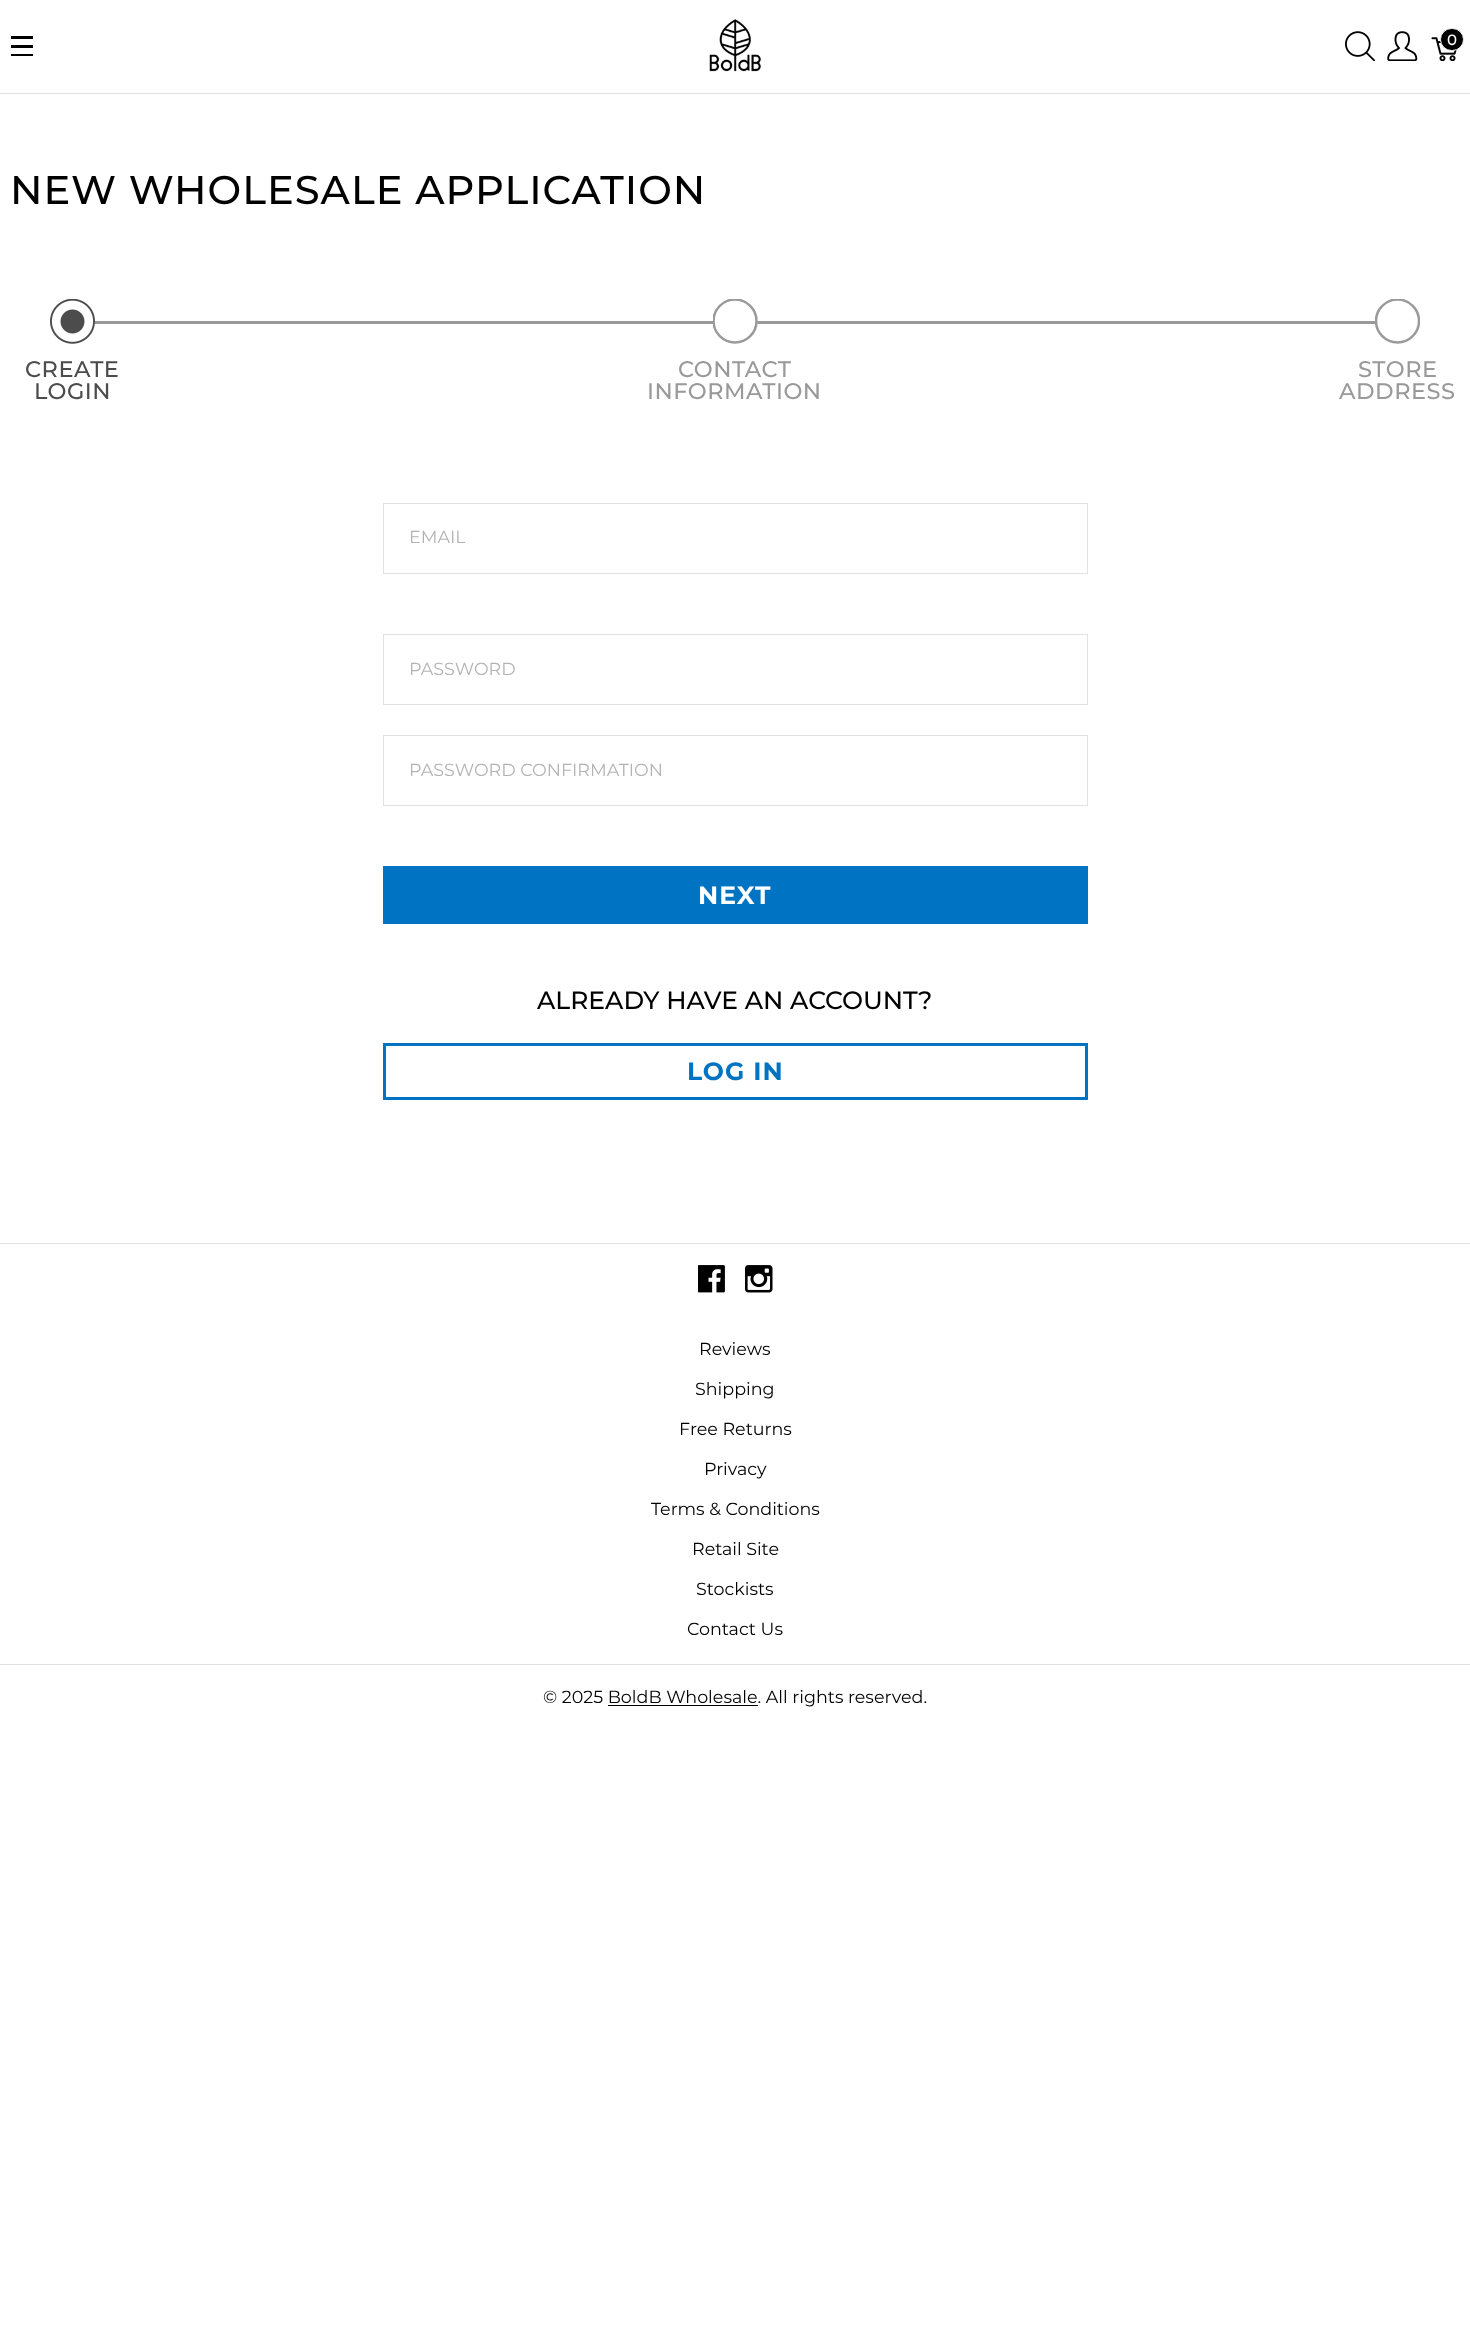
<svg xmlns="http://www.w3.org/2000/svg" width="1470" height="2331">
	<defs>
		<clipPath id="clip1"><rect x="713" y="299" width="45" height="45" /></clipPath>
		<clipPath id="clip2"><rect x="1375" y="299" width="45" height="45" /></clipPath>
	</defs>
	<rect width="100%" height="100%" fill="#FFFFFF" />
	<rect x="0" y="93" width="1470" height="1" fill="#E2E2E2" />
	<rect x="11" y="36" width="22" height="3" fill="#000000" />
	<rect x="11" y="45" width="22" height="3" fill="#000000" />
	<rect x="11" y="54" width="22" height="2" fill="#000000" />
	<image x="709" y="19" width="52" height="53" href="assets/img1.png" />
	<image x="1345" y="31" width="30" height="30" href="assets/img2.png" />
	<image x="1387" y="31" width="31" height="30" href="assets/img3.png" />
	<image x="1431" y="37" width="26" height="24" href="assets/img4.png" />
	<rect x="1440.5" y="28.5" width="23" height="22" rx="11" fill="#000000" stroke="#FFFFFF" />
	<text x="1447" y="45" font-family="Montserrat" font-size="15" font-weight="500" fill="#FFFFFF">0</text>
	<text x="10" y="204" font-family="Montserrat" font-size="40" font-weight="500" letter-spacing="1" fill="#000000">NEW WHOLESALE APPLICATION</text>
	<rect x="94" y="321" width="1322" height="3" fill="#999999" />
	<image x="50" y="299" width="45" height="45" href="assets/img5.png" />
	<g font-family="Montserrat" font-size="22.5" font-weight="500" letter-spacing="0.5" fill="#4C4C4C">
		<text x="25" y="377">CREATE</text>
		<text x="34" y="399">LOGIN</text>
	</g>
	<g clip-path="url(#clip1)">
		<circle cx="735" cy="321" r="22.5" fill="#FFFFFF" fill-opacity="0.99" />
		<circle cx="735" cy="321" r="21.5" fill="none" stroke="#999999" stroke-opacity="0.99" stroke-width="2.5" />
	</g>
	<g font-family="Montserrat" font-size="22.5" font-weight="500" letter-spacing="0.5" fill="#999999">
		<text x="678" y="377">CONTACT</text>
		<text x="647" y="399">INFORMATION</text>
	</g>
	<g clip-path="url(#clip2)">
		<circle cx="1397.5" cy="321" r="22.5" fill="#FFFFFF" fill-opacity="0.99" />
		<circle cx="1397.5" cy="321" r="21.5" fill="none" stroke="#999999" stroke-opacity="0.99" stroke-width="2.5" />
	</g>
	<g font-family="Montserrat" font-size="22.5" font-weight="500" letter-spacing="0.5" fill="#999999">
		<text x="1358" y="377">STORE</text>
		<text x="1339" y="399">ADDRESS</text>
	</g>
	<rect x="383.5" y="503.5" width="704" height="70" fill="none" stroke="#E2E2E2" />
	<text x="409" y="543" font-family="Montserrat" font-size="17.5" fill="#B3B3B3">EMAIL</text>
	<rect x="383.5" y="634.5" width="704" height="70" fill="none" stroke="#E2E2E2" />
	<text x="409" y="675" font-family="Montserrat" font-size="17.5" fill="#B3B3B3">PASSWORD</text>
	<rect x="383.5" y="735.5" width="704" height="70" fill="none" stroke="#E2E2E2" />
	<text x="409" y="776" font-family="Montserrat" font-size="17.5" fill="#B3B3B3">PASSWORD CONFIRMATION</text>
	<rect x="383" y="866" width="705" height="58" fill="#0074C2" />
	<text x="698" y="904" font-family="Montserrat" font-size="25" font-weight="700" letter-spacing="1" fill="#FFFFFF">NEXT</text>
	<text x="537" y="1009" font-family="Montserrat" font-size="25" font-weight="500" fill="#000000">ALREADY HAVE AN ACCOUNT?</text>
	<rect x="384.5" y="1044.5" width="702" height="54" fill="none" stroke="#0074C2" stroke-width="3" />
	<text x="687" y="1080" font-family="Montserrat" font-size="25" font-weight="700" letter-spacing="1" fill="#0074C2">LOG IN</text>
	<rect x="0" y="1243" width="1470" height="1" fill="#E2E2E2" />
	<image x="698" y="1265" width="27" height="28" href="assets/img6.png" />
	<image x="745" y="1265" width="28" height="28" href="assets/img7.png" />
	<g font-family="Montserrat" font-size="17.5" fill="#000000">
		<text x="699" y="1355">Reviews</text>
		<text x="695" y="1395">Shipping</text>
		<text x="679" y="1435">Free Returns</text>
		<text x="704" y="1475">Privacy</text>
		<text x="651" y="1515">Terms &amp; Conditions</text>
		<text x="692" y="1555">Retail Site</text>
		<text x="696" y="1595">Stockists</text>
		<text x="687" y="1635">Contact Us</text>
	</g>
	<rect x="0" y="1664" width="1470" height="1" fill="#E2E2E2" />
	<text x="543" y="1703" font-family="Montserrat" font-size="17.5" fill="#000000">© 2025 BoldB Wholesale. All rights reserved.</text>
	<rect x="608" y="1705" width="150" height="1" fill="#000000" />
</svg>
